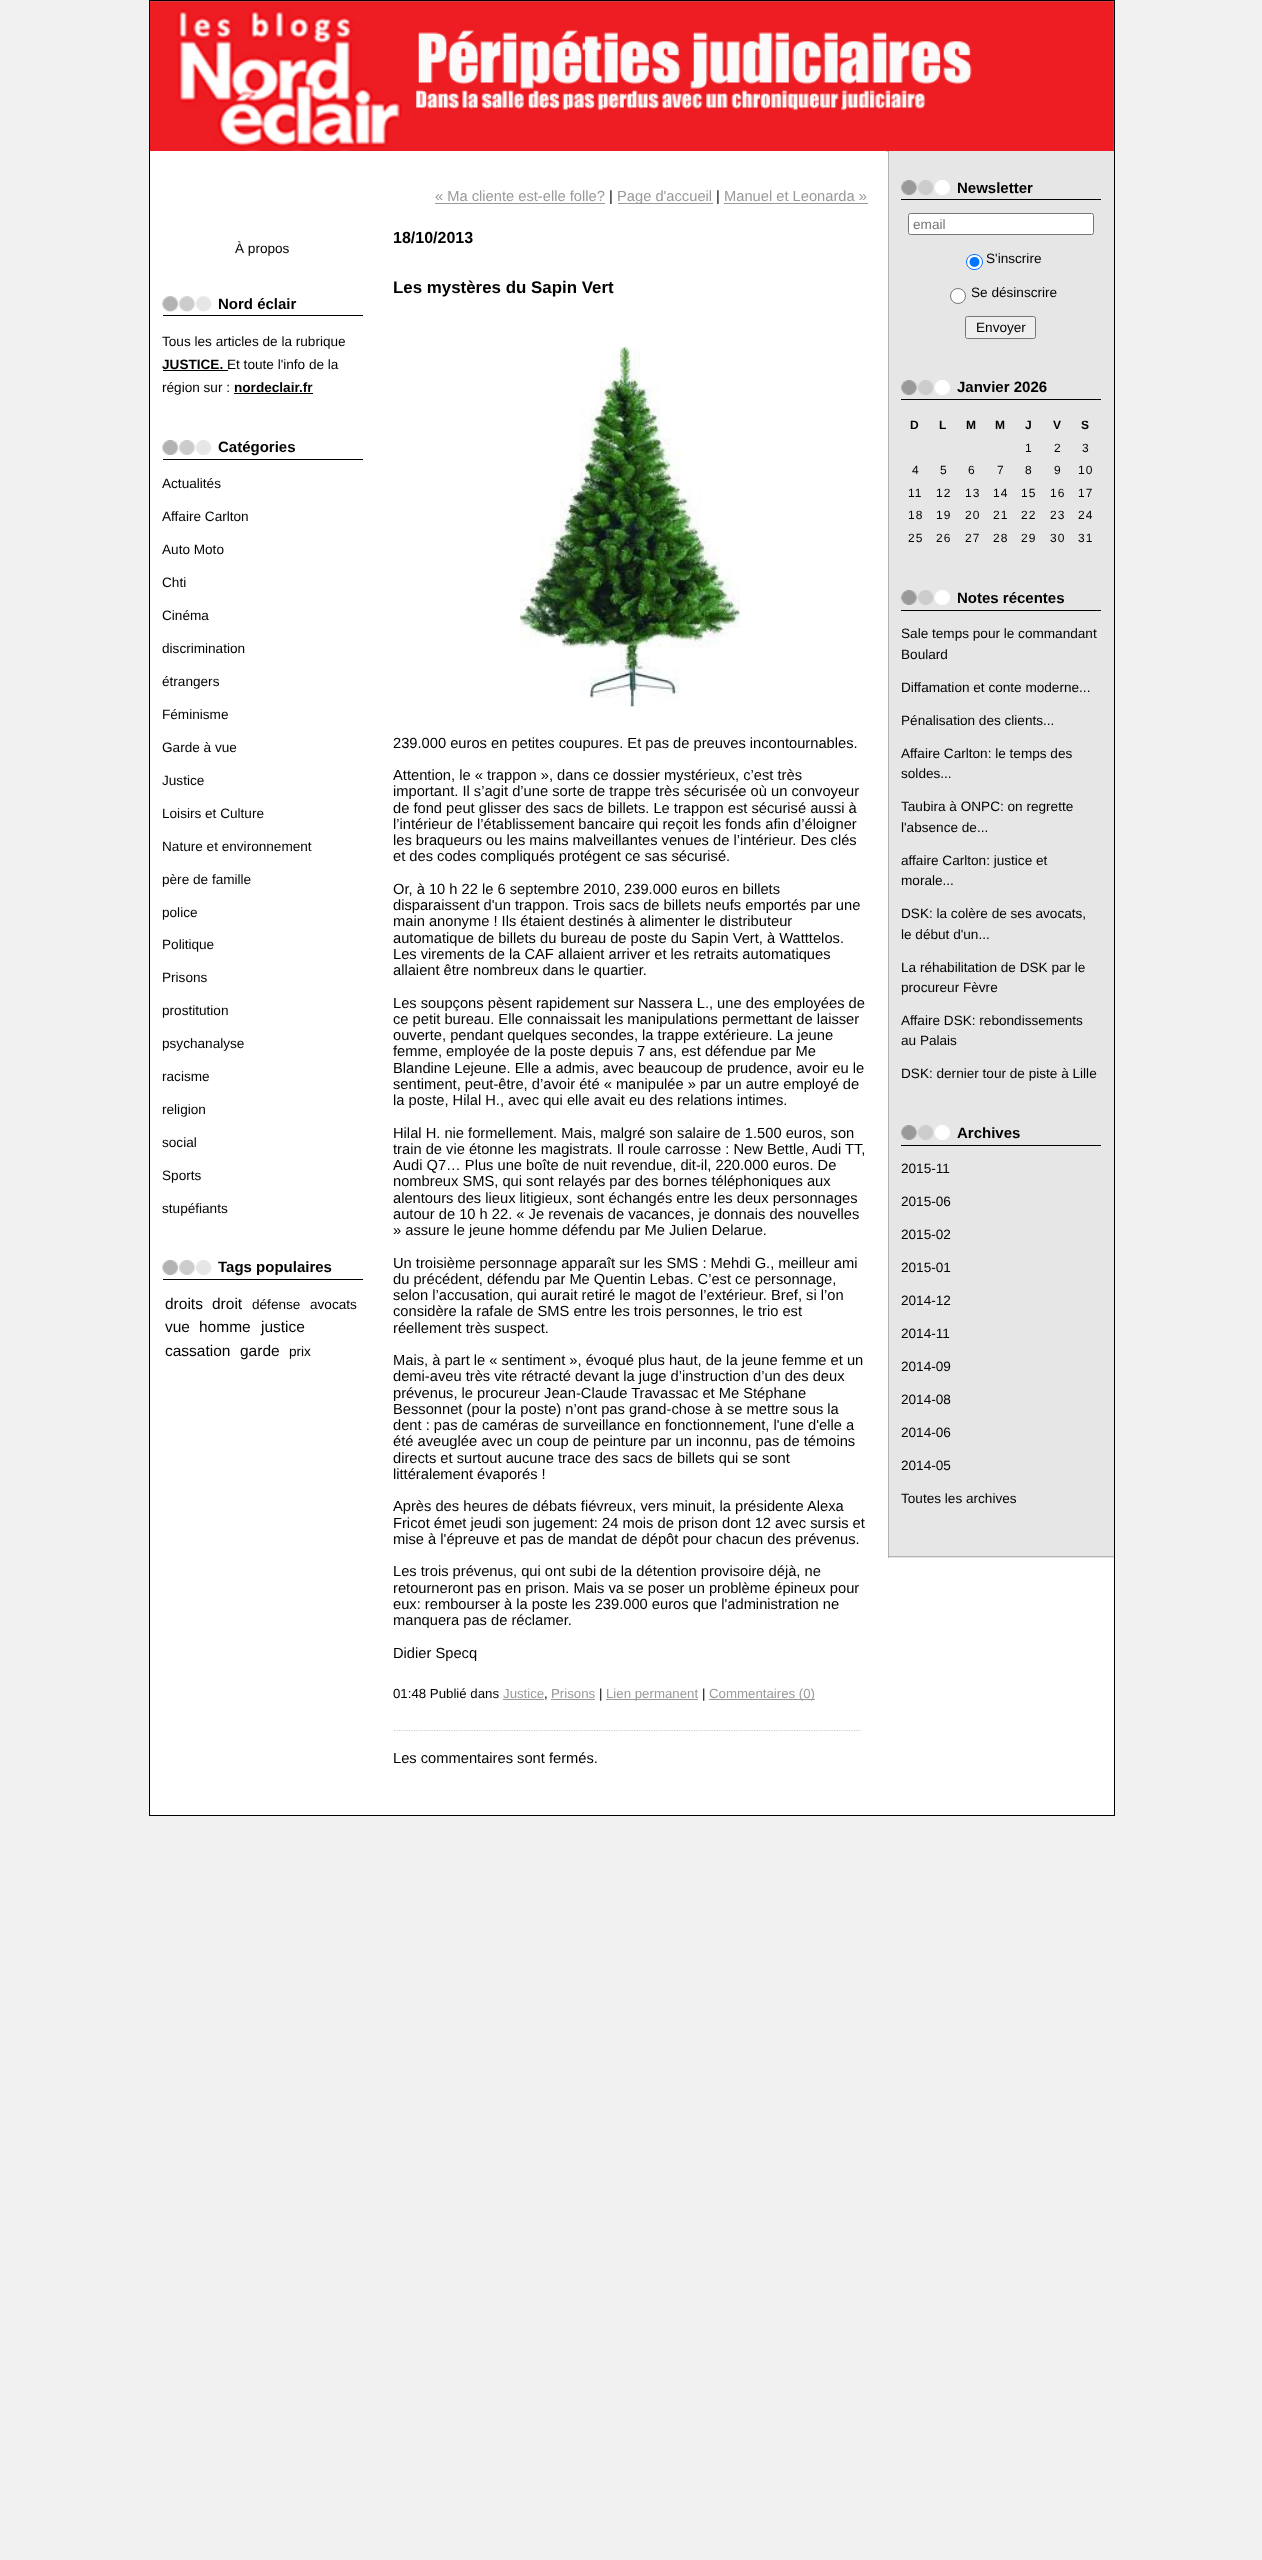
<svg xmlns="http://www.w3.org/2000/svg" width="1262" height="2560">
	<rect width="100%" height="100%" fill="#F1F1F1" />
	<rect x="150" y="151" width="964" height="1664" fill="#FFFFFF" />
	<rect x="149.5" y="0.5" width="965" height="1815" fill="none" stroke="#000000" />
	<rect x="150" y="1" width="964" height="150" fill="#999999" />
	<image x="150" y="1" width="964" height="151" href="assets/img1.png" />
	<rect x="150" y="151" width="736" height="1" fill="#FFFFFF" />
	<text x="235" y="253" font-family="Liberation Sans" font-size="13.6" fill="#000000">À propos</text>
	<image x="162" y="296" width="50" height="16" href="assets/img2.png" />
	<rect x="163" y="315" width="200" height="1" fill="#000000" />
	<text x="218" y="309" font-family="Liberation Sans" font-size="15" font-weight="700" fill="#000000">Nord éclair</text>
	<text x="162" y="346" font-family="Liberation Sans" font-size="13.6" fill="#000000">Tous les articles de la rubrique</text>
	<text x="162" y="369" font-family="Liberation Sans" font-size="13.6" font-weight="700" fill="#000000">JUSTICE.</text>
	<rect x="163" y="370" width="65" height="1" fill="#000000" />
	<g font-family="Liberation Sans" font-size="13.6" fill="#000000">
		<text x="227" y="369">Et toute l'info de la</text>
		<text x="162" y="392">région sur :</text>
	</g>
	<text x="234" y="392" font-family="Liberation Sans" font-size="13.6" font-weight="700" fill="#000000">nordeclair.fr</text>
	<rect x="234" y="393" width="79" height="1" fill="#000000" />
	<image x="162" y="440" width="50" height="15" href="assets/img3.png" />
	<rect x="163" y="459" width="200" height="1" fill="#000000" />
	<text x="218" y="452" font-family="Liberation Sans" font-size="15" font-weight="700" fill="#000000">Catégories</text>
	<g font-family="Liberation Sans" font-size="13.6" fill="#000000">
		<text x="162" y="488">Actualités</text>
		<text x="162" y="521">Affaire Carlton</text>
		<text x="162" y="554">Auto Moto</text>
		<text x="162" y="587">Chti</text>
		<text x="162" y="620">Cinéma</text>
		<text x="162" y="653">discrimination</text>
		<text x="162" y="686">étrangers</text>
		<text x="162" y="719">Féminisme</text>
		<text x="162" y="752">Garde à vue</text>
		<text x="162" y="785">Justice</text>
		<text x="162" y="818">Loisirs et Culture</text>
		<text x="162" y="851">Nature et environnement</text>
		<text x="162" y="884">père de famille</text>
		<text x="162" y="917">police</text>
		<text x="162" y="949">Politique</text>
		<text x="162" y="982">Prisons</text>
		<text x="162" y="1015">prostitution</text>
		<text x="162" y="1048">psychanalyse</text>
		<text x="162" y="1081">racisme</text>
		<text x="162" y="1114">religion</text>
		<text x="162" y="1147">social</text>
		<text x="162" y="1180">Sports</text>
		<text x="162" y="1213">stupéfiants</text>
	</g>
	<image x="162" y="1260" width="50" height="15" href="assets/img3.png" />
	<rect x="163" y="1279" width="200" height="1" fill="#000000" />
	<text x="218" y="1272" font-family="Liberation Sans" font-size="15" font-weight="700" fill="#000000">Tags populaires</text>
	<g font-family="Liberation Sans" font-size="15.5" fill="#000000">
		<text x="165" y="1309">droits</text>
		<text x="212" y="1309">droit</text>
	</g>
	<g font-family="Liberation Sans" font-size="13.6" fill="#000000">
		<text x="252" y="1309">défense</text>
		<text x="310" y="1309">avocats</text>
	</g>
	<g font-family="Liberation Sans" font-size="15.5" fill="#000000">
		<text x="165" y="1332">vue</text>
		<text x="199" y="1332">homme</text>
		<text x="261" y="1332">justice</text>
		<text x="165" y="1356">cassation</text>
		<text x="240" y="1356">garde</text>
	</g>
	<text x="289" y="1356" font-family="Liberation Sans" font-size="13.6" fill="#000000">prix</text>
	<text x="435" y="201" font-family="Liberation Sans" font-size="14.7" fill="#999999">« Ma cliente est-elle folle?</text>
	<rect x="435" y="203" width="170" height="1" fill="#999999" />
	<text x="609" y="201" font-family="Liberation Sans" font-size="14.7" fill="#000000">|</text>
	<rect x="618" y="203" width="95" height="1" fill="#999999" />
	<text x="617" y="201" font-family="Liberation Sans" font-size="14.7" fill="#999999">Page d'accueil</text>
	<text x="716" y="201" font-family="Liberation Sans" font-size="14.7" fill="#000000">|</text>
	<text x="724" y="201" font-family="Liberation Sans" font-size="14.7" fill="#999999">Manuel et Leonarda »</text>
	<rect x="724" y="203" width="144" height="1" fill="#999999" />
	<text x="393" y="243" font-family="Liberation Sans" font-size="16" font-weight="700" fill="#000000">18/10/2013</text>
	<text x="393" y="293" font-family="Liberation Sans" font-size="16.9" font-weight="700" fill="#000000">Les mystères du Sapin Vert</text>
	<image x="520" y="347" width="220" height="360" href="assets/img4.png" />
	<g font-family="Liberation Sans" font-size="14.7" fill="#000000">
		<text x="393" y="748">239.000 euros en petites coupures. Et pas de preuves incontournables.</text>
		<text x="393" y="780">Attention, le « trappon », dans ce dossier mystérieux, c’est très</text>
		<text x="393" y="796">important. Il s’agit d’une sorte de trappe très sécurisée où un convoyeur</text>
		<text x="393" y="813">de fond peut glisser des sacs de billets. Le trappon est sécurisé aussi à</text>
		<text x="393" y="829">l’intérieur de l’établissement bancaire qui reçoit les fonds afin d’éloigner</text>
		<text x="393" y="845">les braqueurs ou les mains malveillantes venues de l’intérieur. Des clés</text>
		<text x="393" y="861">et des codes compliqués protégent ce sas sécurisé.</text>
		<text x="393" y="894">Or, à 10 h 22 le 6 septembre 2010, 239.000 euros en billets</text>
		<text x="393" y="910">disparaissent d'un trappon. Trois sacs de billets neufs emportés par une</text>
		<text x="393" y="926">main anonyme ! Ils étaient destinés à alimenter le distributeur</text>
		<text x="393" y="943">automatique de billets du bureau de poste du Sapin Vert, à Watttelos.</text>
		<text x="393" y="959">Les virements de la CAF allaient arriver et les retraits automatiques</text>
		<text x="393" y="975">allaient être nombreux dans le quartier.</text>
		<text x="393" y="1008">Les soupçons pèsent rapidement sur Nassera L., une des employées de</text>
		<text x="393" y="1024">ce petit bureau. Elle connaissait les manipulations permettant de laisser</text>
		<text x="393" y="1040">ouverte, pendant quelques secondes, la trappe extérieure. La jeune</text>
		<text x="393" y="1056">femme, employée de la poste depuis 7 ans, est défendue par Me</text>
		<text x="393" y="1073">Blandine Lejeune. Elle a admis, avec beaucoup de prudence, avoir eu le</text>
		<text x="393" y="1089">sentiment, peut-être, d’avoir été « manipulée » par un autre employé de</text>
		<text x="393" y="1105">la poste, Hilal H., avec qui elle avait eu des relations intimes.</text>
		<text x="393" y="1138">Hilal H. nie formellement. Mais, malgré son salaire de 1.500 euros, son</text>
		<text x="393" y="1154">train de vie étonne les magistrats. Il roule carrosse : New Bettle, Audi TT,</text>
		<text x="393" y="1170">Audi Q7… Plus une boîte de nuit revendue, dit-il, 220.000 euros. De</text>
		<text x="393" y="1186">nombreux SMS, qui sont relayés par des bornes téléphoniques aux</text>
		<text x="393" y="1203">alentours des lieux litigieux, sont échangés entre les deux personnages</text>
		<text x="393" y="1219">autour de 10 h 22. « Je revenais de vacances, je donnais des nouvelles</text>
		<text x="393" y="1235">» assure le jeune homme défendu par Me Julien Delarue.</text>
		<text x="393" y="1268">Un troisième personnage apparaît sur les SMS : Mehdi G., meilleur ami</text>
		<text x="393" y="1284">du précédent, défendu par Me Quentin Lebas. C’est ce personnage,</text>
		<text x="393" y="1300">selon l’accusation, qui aurait retiré le magot de l’extérieur. Bref, si l’on</text>
		<text x="393" y="1316">considère la rafale de SMS entre les trois personnes, le trio est</text>
		<text x="393" y="1333">réellement très suspect.</text>
		<text x="393" y="1365">Mais, à part le « sentiment », évoqué plus haut, de la jeune femme et un</text>
		<text x="393" y="1381">demi-aveu très vite rétracté devant la juge d’instruction d’un des deux</text>
		<text x="393" y="1398">prévenus, le procureur Jean-Claude Travassac et Me Stéphane</text>
		<text x="393" y="1414">Bessonnet (pour la poste) n’ont pas grand-chose à se mettre sous la</text>
		<text x="393" y="1430">dent : pas de caméras de surveillance en fonctionnement, l'une d'elle a</text>
		<text x="393" y="1446">été aveuglée avec un coup de peinture par un inconnu, pas de témoins</text>
		<text x="393" y="1463">directs et surtout aucune trace des sacs de billets qui se sont</text>
		<text x="393" y="1479">littéralement évaporés !</text>
		<text x="393" y="1511">Après des heures de débats fiévreux, vers minuit, la présidente Alexa</text>
		<text x="393" y="1528">Fricot émet jeudi son jugement: 24 mois de prison dont 12 avec sursis et</text>
		<text x="393" y="1544">mise à l'épreuve et pas de mandat de dépôt pour chacun des prévenus.</text>
		<text x="393" y="1576">Les trois prévenus, qui ont subi de la détention provisoire déjà, ne</text>
		<text x="393" y="1593">retourneront pas en prison. Mais va se poser un problème épineux pour</text>
		<text x="393" y="1609">eux: rembourser à la poste les 239.000 euros que l'administration ne</text>
		<text x="393" y="1625">manquera pas de réclamer.</text>
		<text x="393" y="1658">Didier Specq</text>
	</g>
	<path d="M394 1730.5H861" fill="none" stroke="#CCCCCC" stroke-width="1.2" stroke-dasharray="1.25 1.25" />
	<text x="393" y="1698" font-family="Liberation Sans" font-size="13.25" fill="#000000">01:48 Publié dans</text>
	<text x="503" y="1698" font-family="Liberation Sans" font-size="13.25" fill="#999999">Justice</text>
	<rect x="503" y="1699" width="41" height="1" fill="#999999" />
	<text x="544" y="1698" font-family="Liberation Sans" font-size="13.25" fill="#000000">,</text>
	<text x="551" y="1698" font-family="Liberation Sans" font-size="13.25" fill="#999999">Prisons</text>
	<rect x="551" y="1699" width="44" height="1" fill="#999999" />
	<text x="599" y="1698" font-family="Liberation Sans" font-size="13.25" fill="#000000">|</text>
	<rect x="606" y="1699" width="92" height="1" fill="#999999" />
	<text x="606" y="1698" font-family="Liberation Sans" font-size="13.25" fill="#999999">Lien permanent</text>
	<text x="702" y="1698" font-family="Liberation Sans" font-size="13.25" fill="#000000">|</text>
	<rect x="709" y="1699" width="106" height="1" fill="#999999" />
	<text x="709" y="1698" font-family="Liberation Sans" font-size="13.25" fill="#999999">Commentaires (0)</text>
	<text x="393" y="1763" font-family="Liberation Sans" font-size="14.7" fill="#000000">Les commentaires sont fermés.</text>
	<rect x="889" y="151" width="225" height="1407" fill="#E6E6E6" />
	<rect x="888" y="1556" width="226" height="1" fill="#B2B2B2" />
	<rect x="888" y="151" width="1" height="1407" fill="#B2B2B2" />
	<image x="901" y="180" width="49" height="15" href="assets/img5.png" />
	<rect x="901" y="199" width="200" height="1" fill="#000000" />
	<text x="957" y="193" font-family="Liberation Sans" font-size="15" font-weight="700" fill="#000000">Newsletter</text>
	<rect x="908.5" y="213.5" width="185" height="21" rx="2" fill="#FFFFFF" stroke="#767676" />
	<text x="913" y="229" font-family="Liberation Sans" font-size="13.6" fill="#757575">email</text>
	<rect x="966.5" y="254.5" width="16" height="15" rx="7.5" fill="#FFFFFF" stroke="#0075FF" />
	<circle cx="974.5" cy="262" r="5" fill="#0075FF" />
	<text x="986" y="263" font-family="Liberation Sans" font-size="13.6" fill="#000000">S'inscrire</text>
	<circle cx="958" cy="296" r="7.5" fill="#FFFFFF" stroke="#767676" />
	<text x="971" y="297" font-family="Liberation Sans" font-size="13.6" fill="#000000">Se désinscrire</text>
	<rect x="965.5" y="316.5" width="70" height="22" rx="2" fill="#EFEFEF" stroke="#767676" />
	<text x="976" y="332" font-family="Liberation Sans" font-size="13.6" fill="#000000">Envoyer</text>
	<image x="901" y="380" width="49" height="15" href="assets/img5.png" />
	<rect x="901" y="399" width="200" height="1" fill="#000000" />
	<text x="957" y="392" font-family="Liberation Sans" font-size="15" font-weight="700" fill="#000000">Janvier 2026</text>
	<g font-family="Liberation Sans" font-size="12" font-weight="700" letter-spacing="1" fill="#000000">
		<text x="910" y="429">D</text>
		<text x="939" y="429">L</text>
		<text x="966" y="429">M</text>
		<text x="995" y="429">M</text>
		<text x="1025" y="429">J</text>
		<text x="1053" y="429">V</text>
		<text x="1081" y="429">S</text>
	</g>
	<g font-family="Liberation Sans" font-size="12" letter-spacing="1" fill="#000000">
		<text x="1025" y="452">1</text>
		<text x="1054" y="452">2</text>
		<text x="1082" y="452">3</text>
		<text x="912" y="474">4</text>
		<text x="940" y="474">5</text>
		<text x="968" y="474">6</text>
		<text x="997" y="474">7</text>
		<text x="1025" y="474">8</text>
		<text x="1054" y="474">9</text>
		<text x="1078" y="474">10</text>
		<text x="908" y="497">11</text>
		<text x="936" y="497">12</text>
		<text x="965" y="497">13</text>
		<text x="993" y="497">14</text>
		<text x="1021" y="497">15</text>
		<text x="1050" y="497">16</text>
		<text x="1078" y="497">17</text>
		<text x="908" y="519">18</text>
		<text x="936" y="519">19</text>
		<text x="965" y="519">20</text>
		<text x="993" y="519">21</text>
		<text x="1021" y="519">22</text>
		<text x="1050" y="519">23</text>
		<text x="1078" y="519">24</text>
		<text x="908" y="542">25</text>
		<text x="936" y="542">26</text>
		<text x="965" y="542">27</text>
		<text x="993" y="542">28</text>
		<text x="1021" y="542">29</text>
		<text x="1050" y="542">30</text>
		<text x="1078" y="542">31</text>
	</g>
	<image x="901" y="590" width="49" height="15" href="assets/img5.png" />
	<rect x="901" y="610" width="200" height="1" fill="#000000" />
	<text x="957" y="603" font-family="Liberation Sans" font-size="15" font-weight="700" fill="#000000">Notes récentes</text>
	<g font-family="Liberation Sans" font-size="13.6" fill="#000000">
		<text x="901" y="638">Sale temps pour le commandant</text>
		<text x="901" y="659">Boulard</text>
		<text x="901" y="692">Diffamation et conte moderne...</text>
		<text x="901" y="725">Pénalisation des clients...</text>
		<text x="901" y="758">Affaire Carlton: le temps des</text>
		<text x="901" y="778">soldes...</text>
		<text x="901" y="811">Taubira à ONPC: on regrette</text>
		<text x="901" y="832">l'absence de...</text>
		<text x="901" y="865">affaire Carlton: justice et</text>
		<text x="901" y="885">morale...</text>
		<text x="901" y="918">DSK: la colère de ses avocats,</text>
		<text x="901" y="939">le début d'un...</text>
		<text x="901" y="972">La réhabilitation de DSK par le</text>
		<text x="901" y="992">procureur Fèvre</text>
		<text x="901" y="1025">Affaire DSK: rebondissements</text>
		<text x="901" y="1045">au Palais</text>
		<text x="901" y="1078">DSK: dernier tour de piste à Lille</text>
	</g>
	<image x="901" y="1125" width="49" height="15" href="assets/img5.png" />
	<rect x="901" y="1145" width="200" height="1" fill="#000000" />
	<text x="957" y="1138" font-family="Liberation Sans" font-size="15" font-weight="700" fill="#000000">Archives</text>
	<g font-family="Liberation Sans" font-size="13.6" fill="#000000">
		<text x="901" y="1173">2015-11</text>
		<text x="901" y="1206">2015-06</text>
		<text x="901" y="1239">2015-02</text>
		<text x="901" y="1272">2015-01</text>
		<text x="901" y="1305">2014-12</text>
		<text x="901" y="1338">2014-11</text>
		<text x="901" y="1371">2014-09</text>
		<text x="901" y="1404">2014-08</text>
		<text x="901" y="1437">2014-06</text>
		<text x="901" y="1470">2014-05</text>
		<text x="901" y="1503">Toutes les archives</text>
	</g>
</svg>
